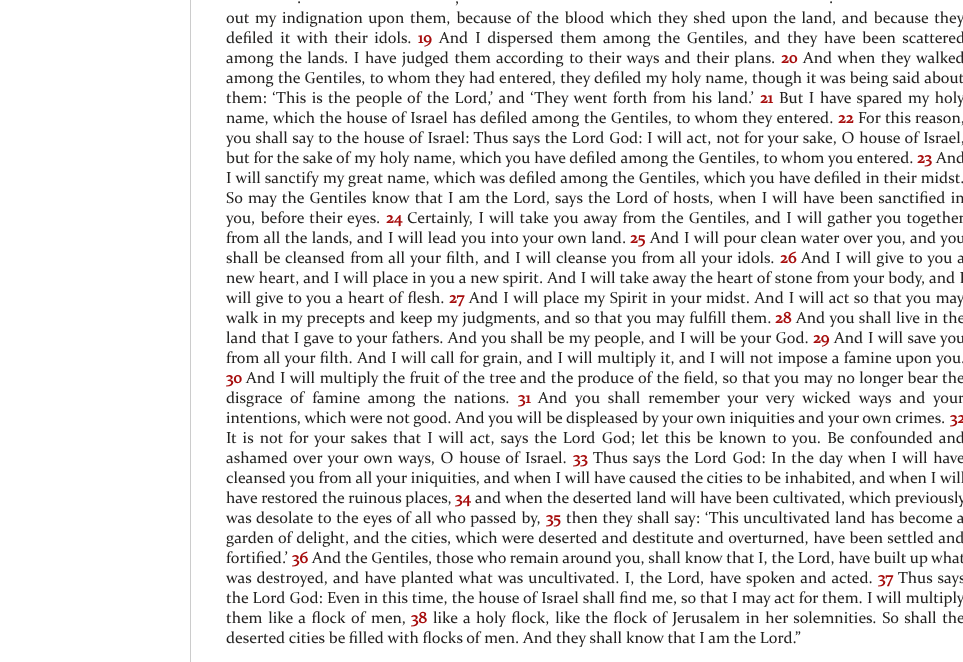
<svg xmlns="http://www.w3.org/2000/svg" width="963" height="662">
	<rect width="100%" height="100%" fill="#FFFFFF" />
	<rect x="190" y="0" width="1" height="662" fill="#CCCCCC" />
	<g font-family="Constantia" font-size="16" fill="#232220">
		<text x="297" y="3">.</text>
		<text x="455" y="3">,</text>
		<text x="829" y="3">.</text>
		<text x="226" y="23" word-spacing="2">out my indignation upon them, because of the blood which they shed upon the land, and because they</text>
		<text x="226" y="43" word-spacing="3">defiled it with their idols.</text>
	</g>
	<text x="418" y="43" font-family="Constantia" font-size="16" font-weight="700" fill="#A60D0D">19</text>
	<g font-family="Constantia" font-size="16" fill="#232220">
		<text x="439" y="43" word-spacing="3">And I dispersed them among the Gentiles, and they have been scattered</text>
		<text x="226" y="63" word-spacing="1.75">among the lands. I have judged them according to their ways and their plans.</text>
	</g>
	<text x="781" y="63" font-family="Constantia" font-size="16" font-weight="700" fill="#A60D0D">20</text>
	<g font-family="Constantia" font-size="16" fill="#232220">
		<text x="803" y="63" word-spacing="1.75">And when they walked</text>
		<text x="226" y="83" word-spacing="0.4">among the Gentiles, to whom they had entered, they defiled my holy name, though it was being said about</text>
		<text x="226" y="103" word-spacing="1.75">them: ‘This is the people of the Lord,’ and ‘They went forth from his land.’</text>
	</g>
	<text x="760" y="103" font-family="Constantia" font-size="16" font-weight="700" fill="#A60D0D">21</text>
	<g font-family="Constantia" font-size="16" fill="#232220">
		<text x="779" y="103" word-spacing="1.75">But I have spared my holy</text>
		<text x="226" y="123" word-spacing="0.75">name, which the house of Israel has defiled among the Gentiles, to whom they entered.</text>
	</g>
	<text x="838" y="123" font-family="Constantia" font-size="16" font-weight="700" fill="#A60D0D">22</text>
	<g font-family="Constantia" font-size="16" fill="#232220">
		<text x="858" y="123" word-spacing="0.75">For this reason,</text>
		<text x="226" y="143" word-spacing="0.8">you shall say to the house of Israel: Thus says the Lord God: I will act, not for your sake, O house of Israel,</text>
		<text x="226" y="163" word-spacing="0.2">but for the sake of my holy name, which you have defiled among the Gentiles, to whom you entered.</text>
	</g>
	<text x="917" y="163" font-family="Constantia" font-size="16" font-weight="700" fill="#A60D0D">23</text>
	<g font-family="Constantia" font-size="16" fill="#232220">
		<text x="936" y="163">And</text>
		<text x="226" y="183" word-spacing="0.4">I will sanctify my great name, which was defiled among the Gentiles, which you have defiled in their midst.</text>
		<text x="226" y="203" word-spacing="1.5">So may the Gentiles know that I am the Lord, says the Lord of hosts, when I will have been sanctified in</text>
		<text x="226" y="223" word-spacing="1.5">you, before their eyes.</text>
	</g>
	<text x="386" y="223" font-family="Constantia" font-size="16" font-weight="700" fill="#A60D0D">24</text>
	<g font-family="Constantia" font-size="16" fill="#232220">
		<text x="407" y="223" word-spacing="1.5">Certainly, I will take you away from the Gentiles, and I will gather you together</text>
		<text x="226" y="243" word-spacing="0.75">from all the lands, and I will lead you into your own land.</text>
	</g>
	<text x="630" y="243" font-family="Constantia" font-size="16" font-weight="700" fill="#A60D0D">25</text>
	<g font-family="Constantia" font-size="16" fill="#232220">
		<text x="650" y="243" word-spacing="0.75">And I will pour clean water over you, and you</text>
		<text x="226" y="263" word-spacing="1.4">shall be cleansed from all your filth, and I will cleanse you from all your idols.</text>
	</g>
	<text x="780" y="263" font-family="Constantia" font-size="16" font-weight="700" fill="#A60D0D">26</text>
	<g font-family="Constantia" font-size="16" fill="#232220">
		<text x="801" y="263" word-spacing="1.4">And I will give to you a</text>
		<text x="226" y="283" word-spacing="0.35">new heart, and I will place in you a new spirit. And I will take away the heart of stone from your body, and I</text>
		<text x="226" y="303" word-spacing="1">will give to you a heart of flesh.</text>
	</g>
	<text x="449" y="303" font-family="Constantia" font-size="16" font-weight="700" fill="#A60D0D">27</text>
	<g font-family="Constantia" font-size="16" fill="#232220">
		<text x="469" y="303" word-spacing="1">And I will place my Spirit in your midst. And I will act so that you may</text>
		<text x="226" y="323" word-spacing="0.75">walk in my precepts and keep my judgments, and so that you may fulfill them.</text>
	</g>
	<text x="775" y="323" font-family="Constantia" font-size="16" font-weight="700" fill="#A60D0D">28</text>
	<g font-family="Constantia" font-size="16" fill="#232220">
		<text x="796" y="323" word-spacing="0.75">And you shall live in the</text>
		<text x="226" y="343" word-spacing="0.75">land that I gave to your fathers. And you shall be my people, and I will be your God.</text>
	</g>
	<text x="813" y="343" font-family="Constantia" font-size="16" font-weight="700" fill="#A60D0D">29</text>
	<g font-family="Constantia" font-size="16" fill="#232220">
		<text x="834" y="343" word-spacing="0.75">And I will save you</text>
		<text x="226" y="363" word-spacing="0.75">from all your filth. And I will call for grain, and I will multiply it, and I will not impose a famine upon you.</text>
	</g>
	<text x="226" y="383" font-family="Constantia" font-size="16" font-weight="700" fill="#A60D0D">30</text>
	<g font-family="Constantia" font-size="16" fill="#232220">
		<text x="246" y="383" word-spacing="0.75">And I will multiply the fruit of the tree and the produce of the field, so that you may no longer bear the</text>
		<text x="226" y="403" word-spacing="4.25">disgrace of famine among the nations.</text>
	</g>
	<text x="518" y="403" font-family="Constantia" font-size="16" font-weight="700" fill="#A60D0D">31</text>
	<g font-family="Constantia" font-size="16" fill="#232220">
		<text x="538" y="403" word-spacing="4.25">And you shall remember your very wicked ways and your</text>
		<text x="226" y="423" word-spacing="0.1">intentions, which were not good. And you will be displeased by your own iniquities and your own crimes.</text>
	</g>
	<text x="950" y="423" font-family="Constantia" font-size="16" font-weight="700" fill="#A60D0D">32</text>
	<g font-family="Constantia" font-size="16" fill="#232220">
		<text x="226" y="443" word-spacing="2.3">It is not for your sakes that I will act, says the Lord God; let this be known to you. Be confounded and</text>
		<text x="226" y="463" word-spacing="1.75">ashamed over your own ways, O house of Israel.</text>
	</g>
	<text x="573" y="463" font-family="Constantia" font-size="16" font-weight="700" fill="#A60D0D">33</text>
	<g font-family="Constantia" font-size="16" fill="#232220">
		<text x="593" y="463" word-spacing="1.75">Thus says the Lord God: In the day when I will have</text>
		<text x="226" y="483" word-spacing="0.2">cleansed you from all your iniquities, and when I will have caused the cities to be inhabited, and when I will</text>
		<text x="226" y="503" word-spacing="0.25">have restored the ruinous places,</text>
	</g>
	<text x="455" y="503" font-family="Constantia" font-size="16" font-weight="700" fill="#A60D0D">34</text>
	<g font-family="Constantia" font-size="16" fill="#232220">
		<text x="475" y="503" word-spacing="0.25">and when the deserted land will have been cultivated, which previously</text>
		<text x="226" y="523" word-spacing="1">was desolate to the eyes of all who passed by,</text>
	</g>
	<text x="546" y="523" font-family="Constantia" font-size="16" font-weight="700" fill="#A60D0D">35</text>
	<g font-family="Constantia" font-size="16" fill="#232220">
		<text x="566" y="523" word-spacing="1">then they shall say: ‘This uncultivated land has become a</text>
		<text x="226" y="543" word-spacing="0.8">garden of delight, and the cities, which were deserted and destitute and overturned, have been settled and</text>
		<text x="226" y="563">fortified.’</text>
	</g>
	<text x="292" y="563" font-family="Constantia" font-size="16" font-weight="700" fill="#A60D0D">36</text>
	<g font-family="Constantia" font-size="16" fill="#232220">
		<text x="312" y="563">And the Gentiles, those who remain around you, shall know that I, the Lord, have built up what</text>
		<text x="226" y="583" word-spacing="1.5">was destroyed, and have planted what was uncultivated. I, the Lord, have spoken and acted.</text>
	</g>
	<text x="878" y="583" font-family="Constantia" font-size="16" font-weight="700" fill="#A60D0D">37</text>
	<g font-family="Constantia" font-size="16" fill="#232220">
		<text x="898" y="583" word-spacing="1.5">Thus says</text>
		<text x="226" y="603" word-spacing="0.3">the Lord God: Even in this time, the house of Israel shall find me, so that I may act for them. I will multiply</text>
		<text x="226" y="623" word-spacing="2">them like a flock of men,</text>
	</g>
	<text x="411" y="623" font-family="Constantia" font-size="16" font-weight="700" fill="#A60D0D">38</text>
	<g font-family="Constantia" font-size="16" fill="#232220">
		<text x="433" y="623" word-spacing="1.8">like a holy flock, like the flock of Jerusalem in her solemnities. So shall the</text>
		<text x="226" y="643">deserted cities be filled with flocks of men. And they shall know that I am the Lord.”</text>
	</g>
</svg>
